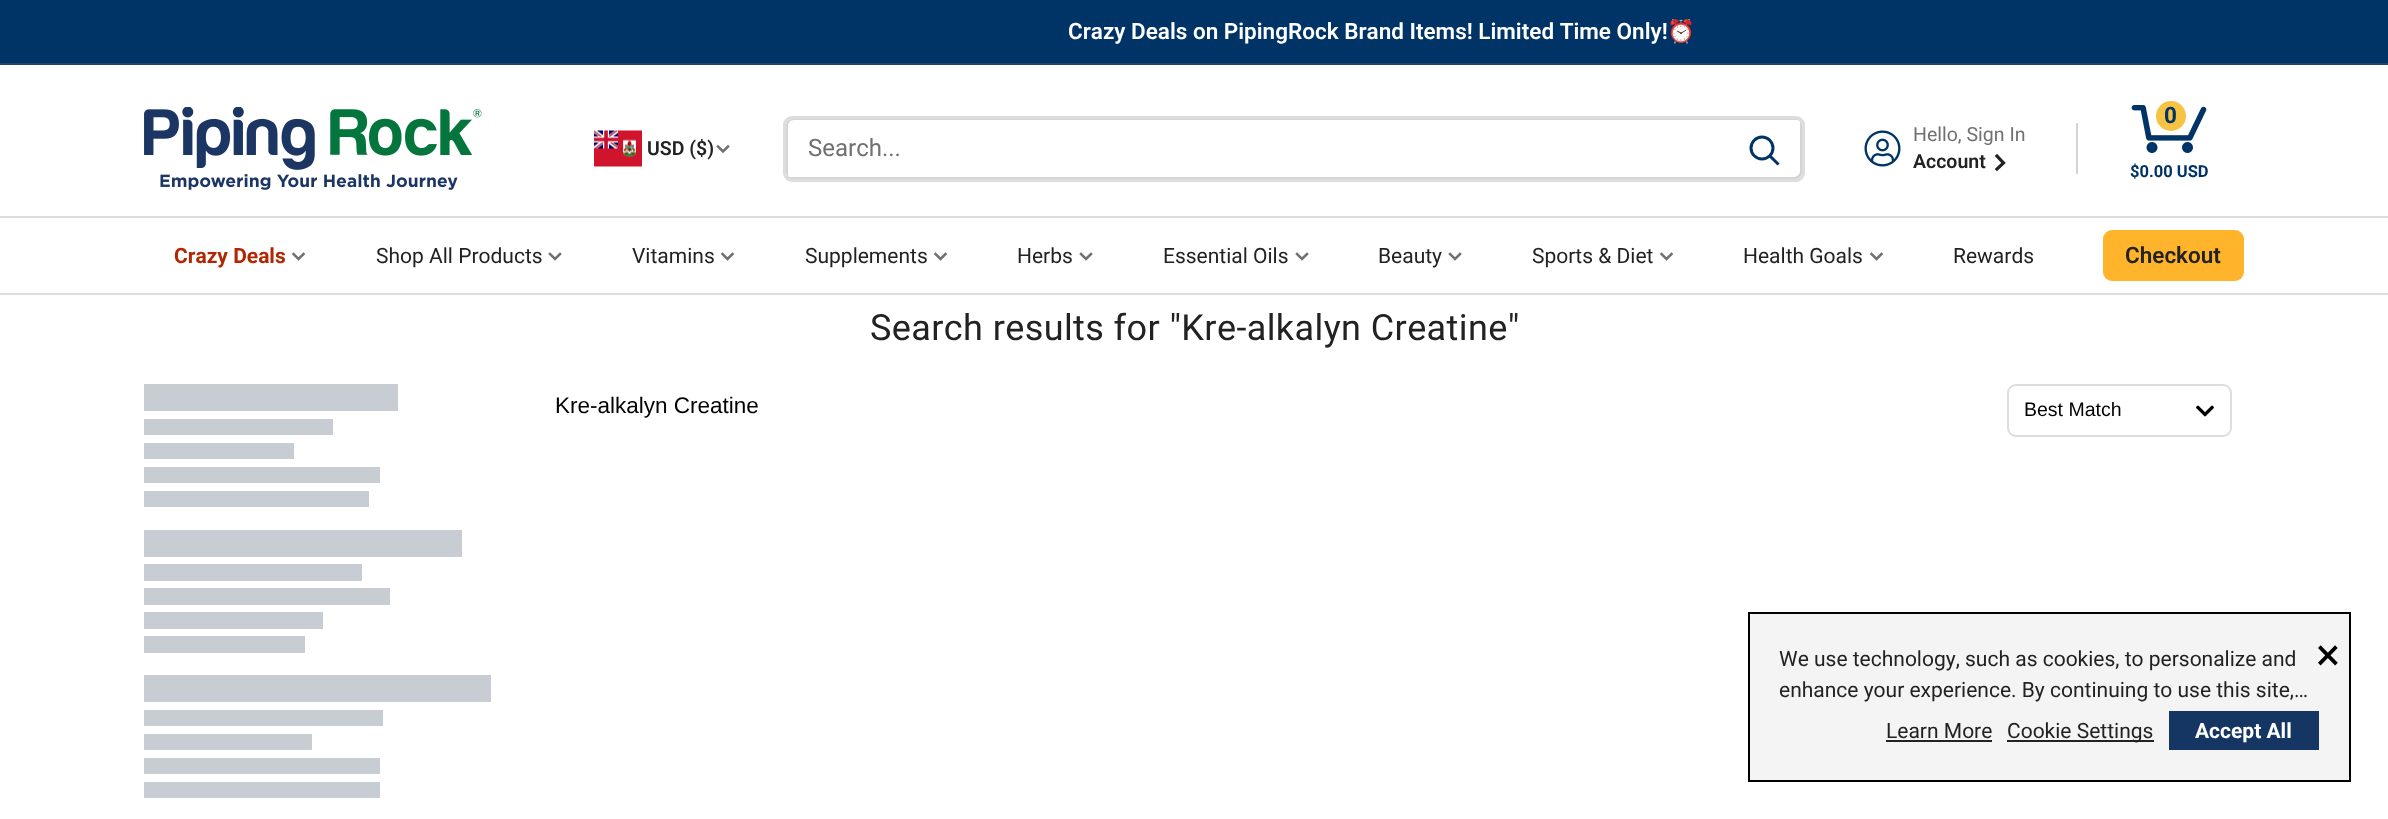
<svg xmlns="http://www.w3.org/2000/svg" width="2388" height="819">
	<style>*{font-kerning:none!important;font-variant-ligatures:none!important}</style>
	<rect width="100%" height="100%" fill="#FFFFFF" />
	<rect x="0" y="0" width="2388" height="63" fill="#003366" />
	<rect x="0" y="63" width="2388" height="2" fill="#224569" />
	<text x="1068" y="39" font-family="Roboto" font-size="22.5" font-weight="600" fill="#FFFFFF">Crazy Deals on PipingRock Brand Items! Limited Time Only!</text>
	<text x="1667" y="39" font-family="Noto Color Emoji" font-size="22.5" font-weight="700" fill="#FFFFFF">⏰</text>
	<image x="144" y="107" width="338" height="83" href="assets/img1.png" />
	<image x="594" y="130" width="48" height="37" href="assets/img2.png" />
	<text x="647" y="155" font-family="Roboto" font-size="19.5" font-weight="600" fill="#222222">USD ($)</text>
	<path d="M728 146.5L723 151.5L718 146.5" fill="none" stroke="#707070" stroke-width="2.5" stroke-linecap="square" />
	<path d="M787 176C788 178 790 179 792 179H1796C1799 179 1802 176 1802 173V125C1802 123 1801 121 1799 120C1800 121 1800 122 1800 123V171C1800 174 1797 177 1794 177H790C789 177 788 177 787 176Z" fill="#D4D4D4" />
	<path d="M794 120H1797C1798 120 1800 121 1801 122C1800 120 1798 119 1796 119H792C789 119 786 122 786 125V173C786 176 788 178 790 179C789 178 788 176 788 174V126C788 123 790 120 794 120Z" fill="#707070" fill-opacity="0.3" />
	<rect x="784.5" y="117.5" width="1019" height="63" rx="7.5" fill="none" stroke="#DDDDDD" stroke-width="3" />
	<text x="808" y="156" font-family="Roboto" font-size="24" fill="#707070">Search...</text>
	<path d="M1777.5 163.5L1770 156" fill="none" stroke="#003366" stroke-width="3" stroke-linecap="square" />
	<circle cx="1762" cy="148" r="11" fill="none" stroke="#003366" stroke-width="3" />
	<image x="1864" y="130" width="37" height="37" href="assets/img3.png" />
	<text x="1913" y="141" font-family="Roboto" font-size="19.5" fill="#707070">Hello, Sign In</text>
	<text x="1913" y="168" font-family="Roboto" font-size="19.5" font-weight="600" fill="#222222">Account</text>
	<path d="M1997 156L2003.5 163L1997 169" fill="none" stroke="#222222" stroke-width="3.2" stroke-linecap="square" />
	<rect x="2076" y="123" width="2" height="51" fill="#D4D4D4" />
	<image x="2131" y="105" width="76" height="48" href="assets/img4.png" />
	<circle cx="2171" cy="116" r="15" fill="#F6C342" />
	<text x="2164" y="123" font-family="Roboto" font-size="22.5" font-weight="700" fill="#003366">0</text>
	<text x="2130" y="177" font-family="Roboto" font-size="16.5" font-weight="700" fill="#003366">$0.00 USD</text>
	<rect x="0" y="216" width="2388" height="2" fill="#DDDDDD" />
	<rect x="0" y="293" width="2388" height="2" fill="#DDDDDD" />
	<text x="174" y="263" font-family="Roboto" font-size="21" font-weight="700" fill="#B12704">Crazy Deals</text>
	<path d="M303.5 254L298.5 259L293.5 254" fill="none" stroke="#707070" stroke-width="2.5" stroke-linecap="square" />
	<text x="376" y="263" font-family="Roboto" font-size="21" fill="#222222">Shop All Products</text>
	<path d="M560 254L555 259L550 254" fill="none" stroke="#707070" stroke-width="2.5" stroke-linecap="square" />
	<text x="632" y="263" font-family="Roboto" font-size="21" fill="#222222">Vitamins</text>
	<path d="M732.5 254L727.5 259L722.5 254" fill="none" stroke="#707070" stroke-width="2.5" stroke-linecap="square" />
	<text x="805" y="263" font-family="Roboto" font-size="21" fill="#222222">Supplements</text>
	<path d="M945.5 254L940.5 259L935.5 254" fill="none" stroke="#707070" stroke-width="2.5" stroke-linecap="square" />
	<text x="1017" y="263" font-family="Roboto" font-size="21" fill="#222222">Herbs</text>
	<path d="M1091 254L1086 259L1081 254" fill="none" stroke="#707070" stroke-width="2.5" stroke-linecap="square" />
	<text x="1163" y="263" font-family="Roboto" font-size="21" fill="#222222">Essential Oils</text>
	<path d="M1307 254L1302 259L1297 254" fill="none" stroke="#707070" stroke-width="2.5" stroke-linecap="square" />
	<text x="1378" y="263" font-family="Roboto" font-size="21" fill="#222222">Beauty</text>
	<path d="M1460 254L1455 259L1450 254" fill="none" stroke="#707070" stroke-width="2.5" stroke-linecap="square" />
	<text x="1532" y="263" font-family="Roboto" font-size="21" fill="#222222">Sports &amp; Diet</text>
	<path d="M1671.5 254L1666.5 259L1661.5 254" fill="none" stroke="#707070" stroke-width="2.5" stroke-linecap="square" />
	<text x="1743" y="263" font-family="Roboto" font-size="21" fill="#222222">Health Goals</text>
	<path d="M1881.5 254L1876.5 259L1871.5 254" fill="none" stroke="#707070" stroke-width="2.5" stroke-linecap="square" />
	<text x="1953" y="263" font-family="Roboto" font-size="21" fill="#222222">Rewards</text>
	<rect x="2103" y="230" width="141" height="51" rx="9" fill="#FFB42B" />
	<text x="2125" y="263" font-family="Roboto" font-size="22.5" font-weight="600" fill="#222222">Checkout</text>
	<text x="870" y="340" font-family="Roboto" font-size="36" letter-spacing="0.4" fill="#222222">Search results for "Kre-alkalyn Creatine"</text>
	<rect x="144" y="384" width="254" height="27" fill="#C7CDD2" />
	<rect x="144" y="419" width="189" height="16" fill="#C7CDD2" />
	<rect x="144" y="443" width="150" height="16" fill="#C7CDD2" />
	<rect x="144" y="467" width="236" height="16" fill="#C7CDD2" />
	<rect x="144" y="491" width="225" height="16" fill="#C7CDD2" />
	<rect x="144" y="530" width="318" height="27" fill="#C7CDD2" />
	<rect x="144" y="564" width="218" height="17" fill="#C7CDD2" />
	<rect x="144" y="588" width="246" height="17" fill="#C7CDD2" />
	<rect x="144" y="612" width="179" height="17" fill="#C7CDD2" />
	<rect x="144" y="636" width="161" height="17" fill="#C7CDD2" />
	<rect x="144" y="675" width="347" height="27" fill="#C7CDD2" />
	<rect x="144" y="710" width="239" height="16" fill="#C7CDD2" />
	<rect x="144" y="734" width="168" height="16" fill="#C7CDD2" />
	<rect x="144" y="758" width="236" height="16" fill="#C7CDD2" />
	<rect x="144" y="782" width="236" height="16" fill="#C7CDD2" />
	<text x="555" y="413" font-family="Liberation Sans" font-size="22.5" fill="#000000">Kre-alkalyn Creatine</text>
	<rect x="2008" y="385" width="223" height="51" rx="8" fill="none" stroke="#DDDDDD" stroke-width="2" />
	<text x="2024" y="416" font-family="Liberation Sans" font-size="19.5" fill="#000000">Best Match</text>
	<image x="2196" y="405" width="18" height="12" href="assets/img5.png" />
	<rect x="1749" y="613" width="601" height="168" fill="#F4F4F4" stroke="#000000" stroke-width="2" />
	<text x="2316" y="670" font-family="Roboto" font-size="45" fill="#000000">×</text>
	<text x="1886" y="738" font-family="Roboto" font-size="21" fill="#222222">Learn More</text>
	<rect x="1886" y="740" width="106" height="2" fill="#222222" />
	<rect x="2007" y="740" width="147" height="2" fill="#222222" />
	<text x="2007" y="738" font-family="Roboto" font-size="21" fill="#222222">Cookie Settings</text>
	<rect x="2169" y="711" width="150" height="39" fill="#153662" />
	<text x="2195" y="738" font-family="Roboto" font-size="21" font-weight="700" fill="#FFFFFF">Accept All</text>
	<g font-family="Roboto" font-size="21" fill="#222222">
		<text x="1779" y="666">We use technology, such as cookies, to personalize and</text>
		<text x="1779" y="697">enhance your experience. By continuing to use this site,…</text>
	</g>
</svg>
